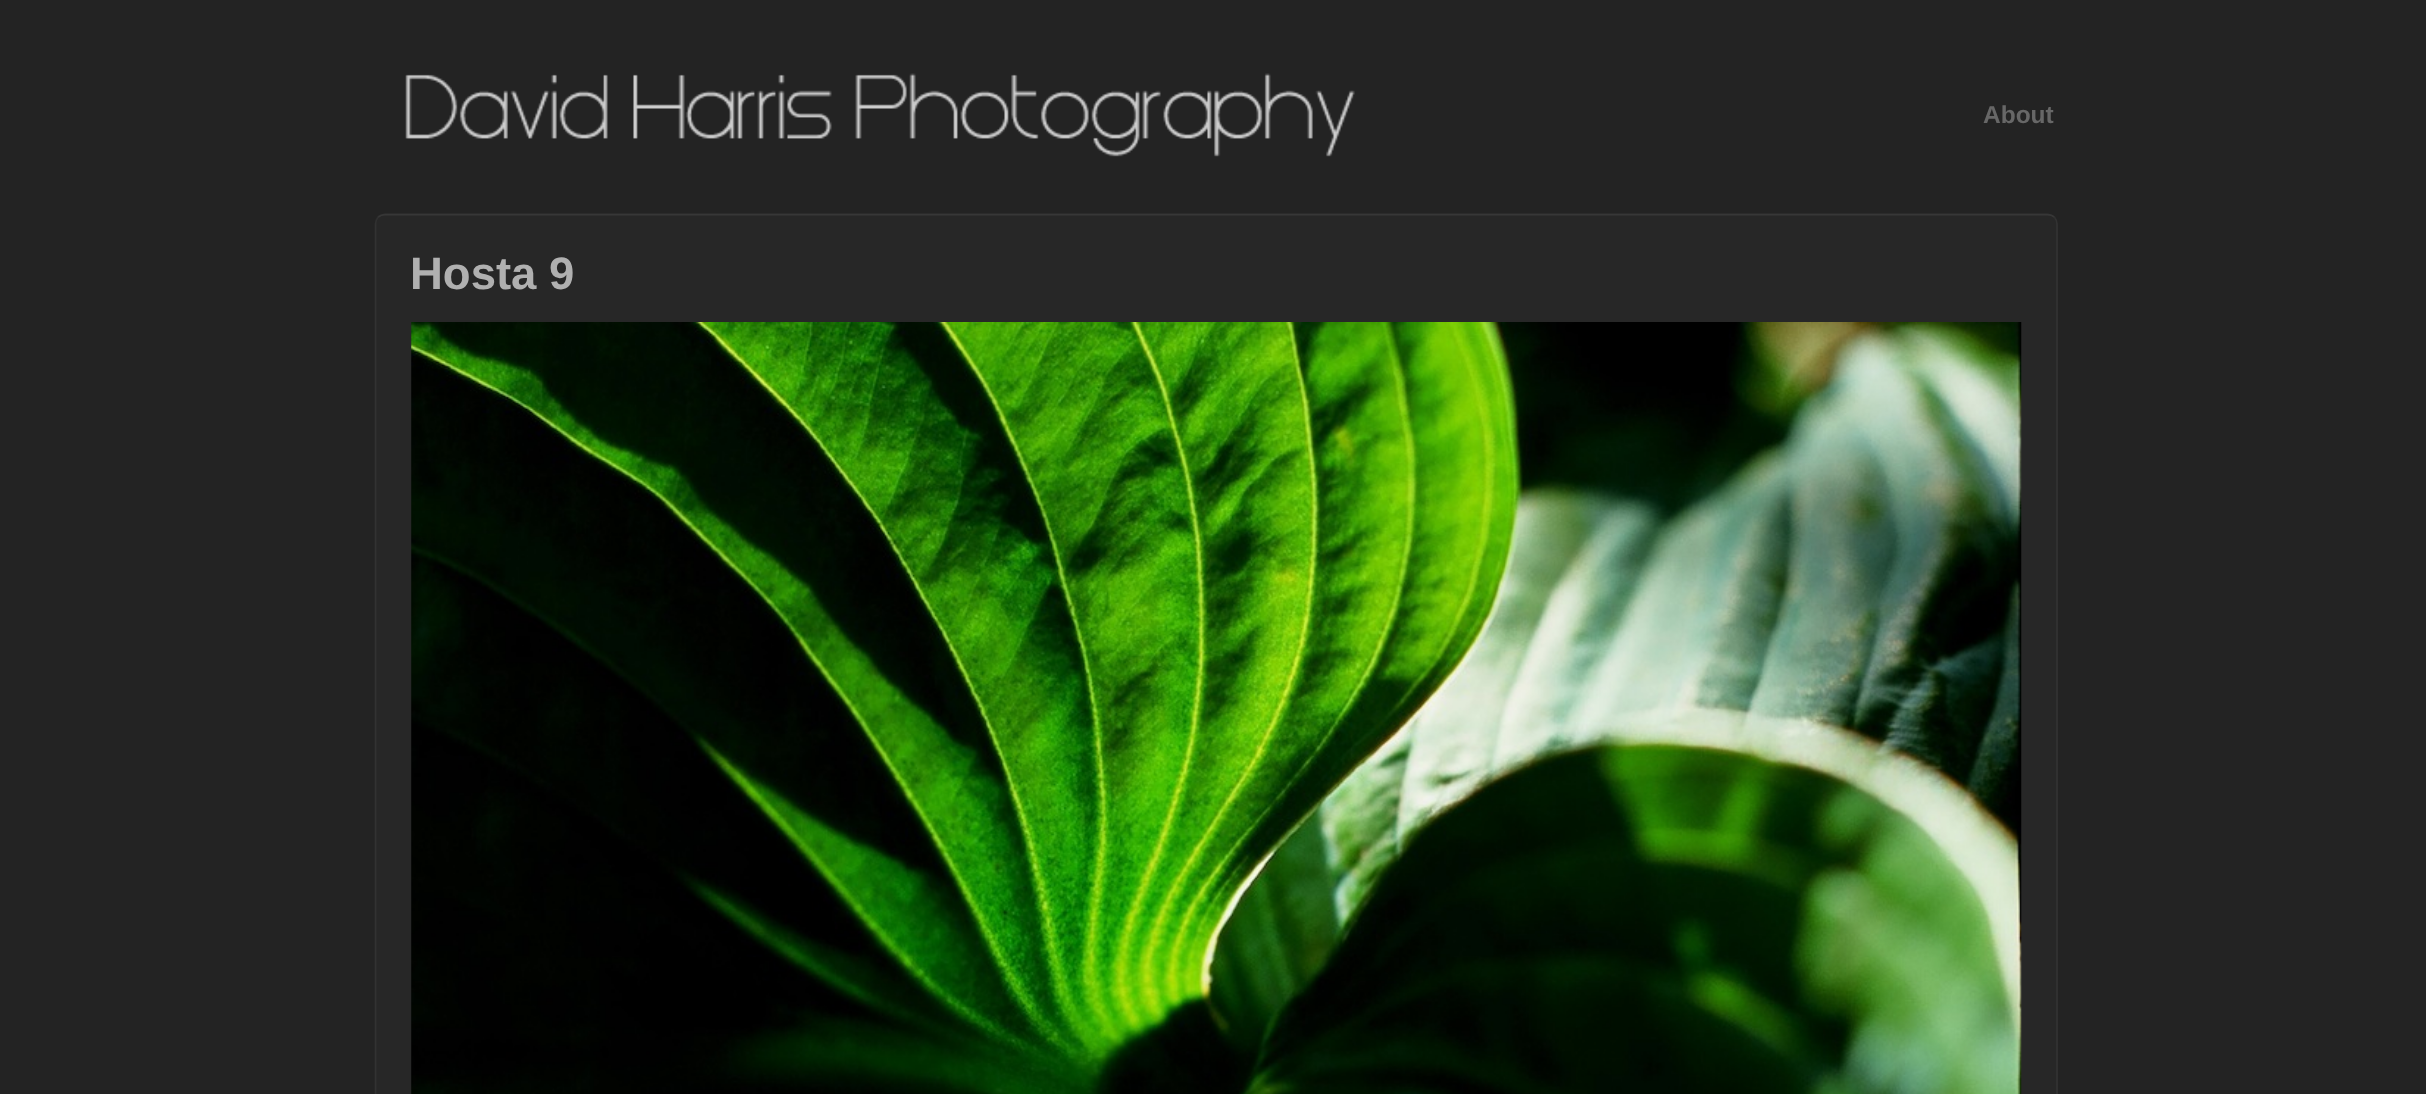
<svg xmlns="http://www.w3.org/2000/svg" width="2426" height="1094">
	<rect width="100%" height="100%" fill="#232323" />
	<image x="405" y="73" width="950" height="84" href="assets/img1.png" />
	<text x="1983" y="123" font-family="Liberation Sans" font-size="24.5" font-weight="700" fill="#676767">About</text>
	<rect x="375" y="214" width="1683" height="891" rx="11" fill="#272727" />
	<path d="M378 217C380 215.5 382.5 214.5 385 214.5H2047.5C2050 214.5 2052.5 215.5 2054.5 217" fill="none" stroke="#FFFFFF" stroke-opacity="0.08" stroke-width="1.8" />
	<path d="M2054.5 217C2056 219 2057 221.5 2057 224V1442C2057 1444.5 2056 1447 2054.5 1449" fill="none" stroke="#FFFFFF" stroke-opacity="0.05" stroke-width="1.8" />
	<path d="M378 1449C376.5 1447 375.5 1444.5 375.5 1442V224C375.5 221.5 376.5 219 378 217" fill="none" stroke="#FFFFFF" stroke-opacity="0.05" stroke-width="1.8" />
	<text x="410" y="289" font-family="Liberation Sans" font-size="45.5" font-weight="700" fill="#B0B0B0">Hosta 9</text>
	<image x="411" y="322" width="1611" height="772" href="assets/img2.png" />
</svg>
